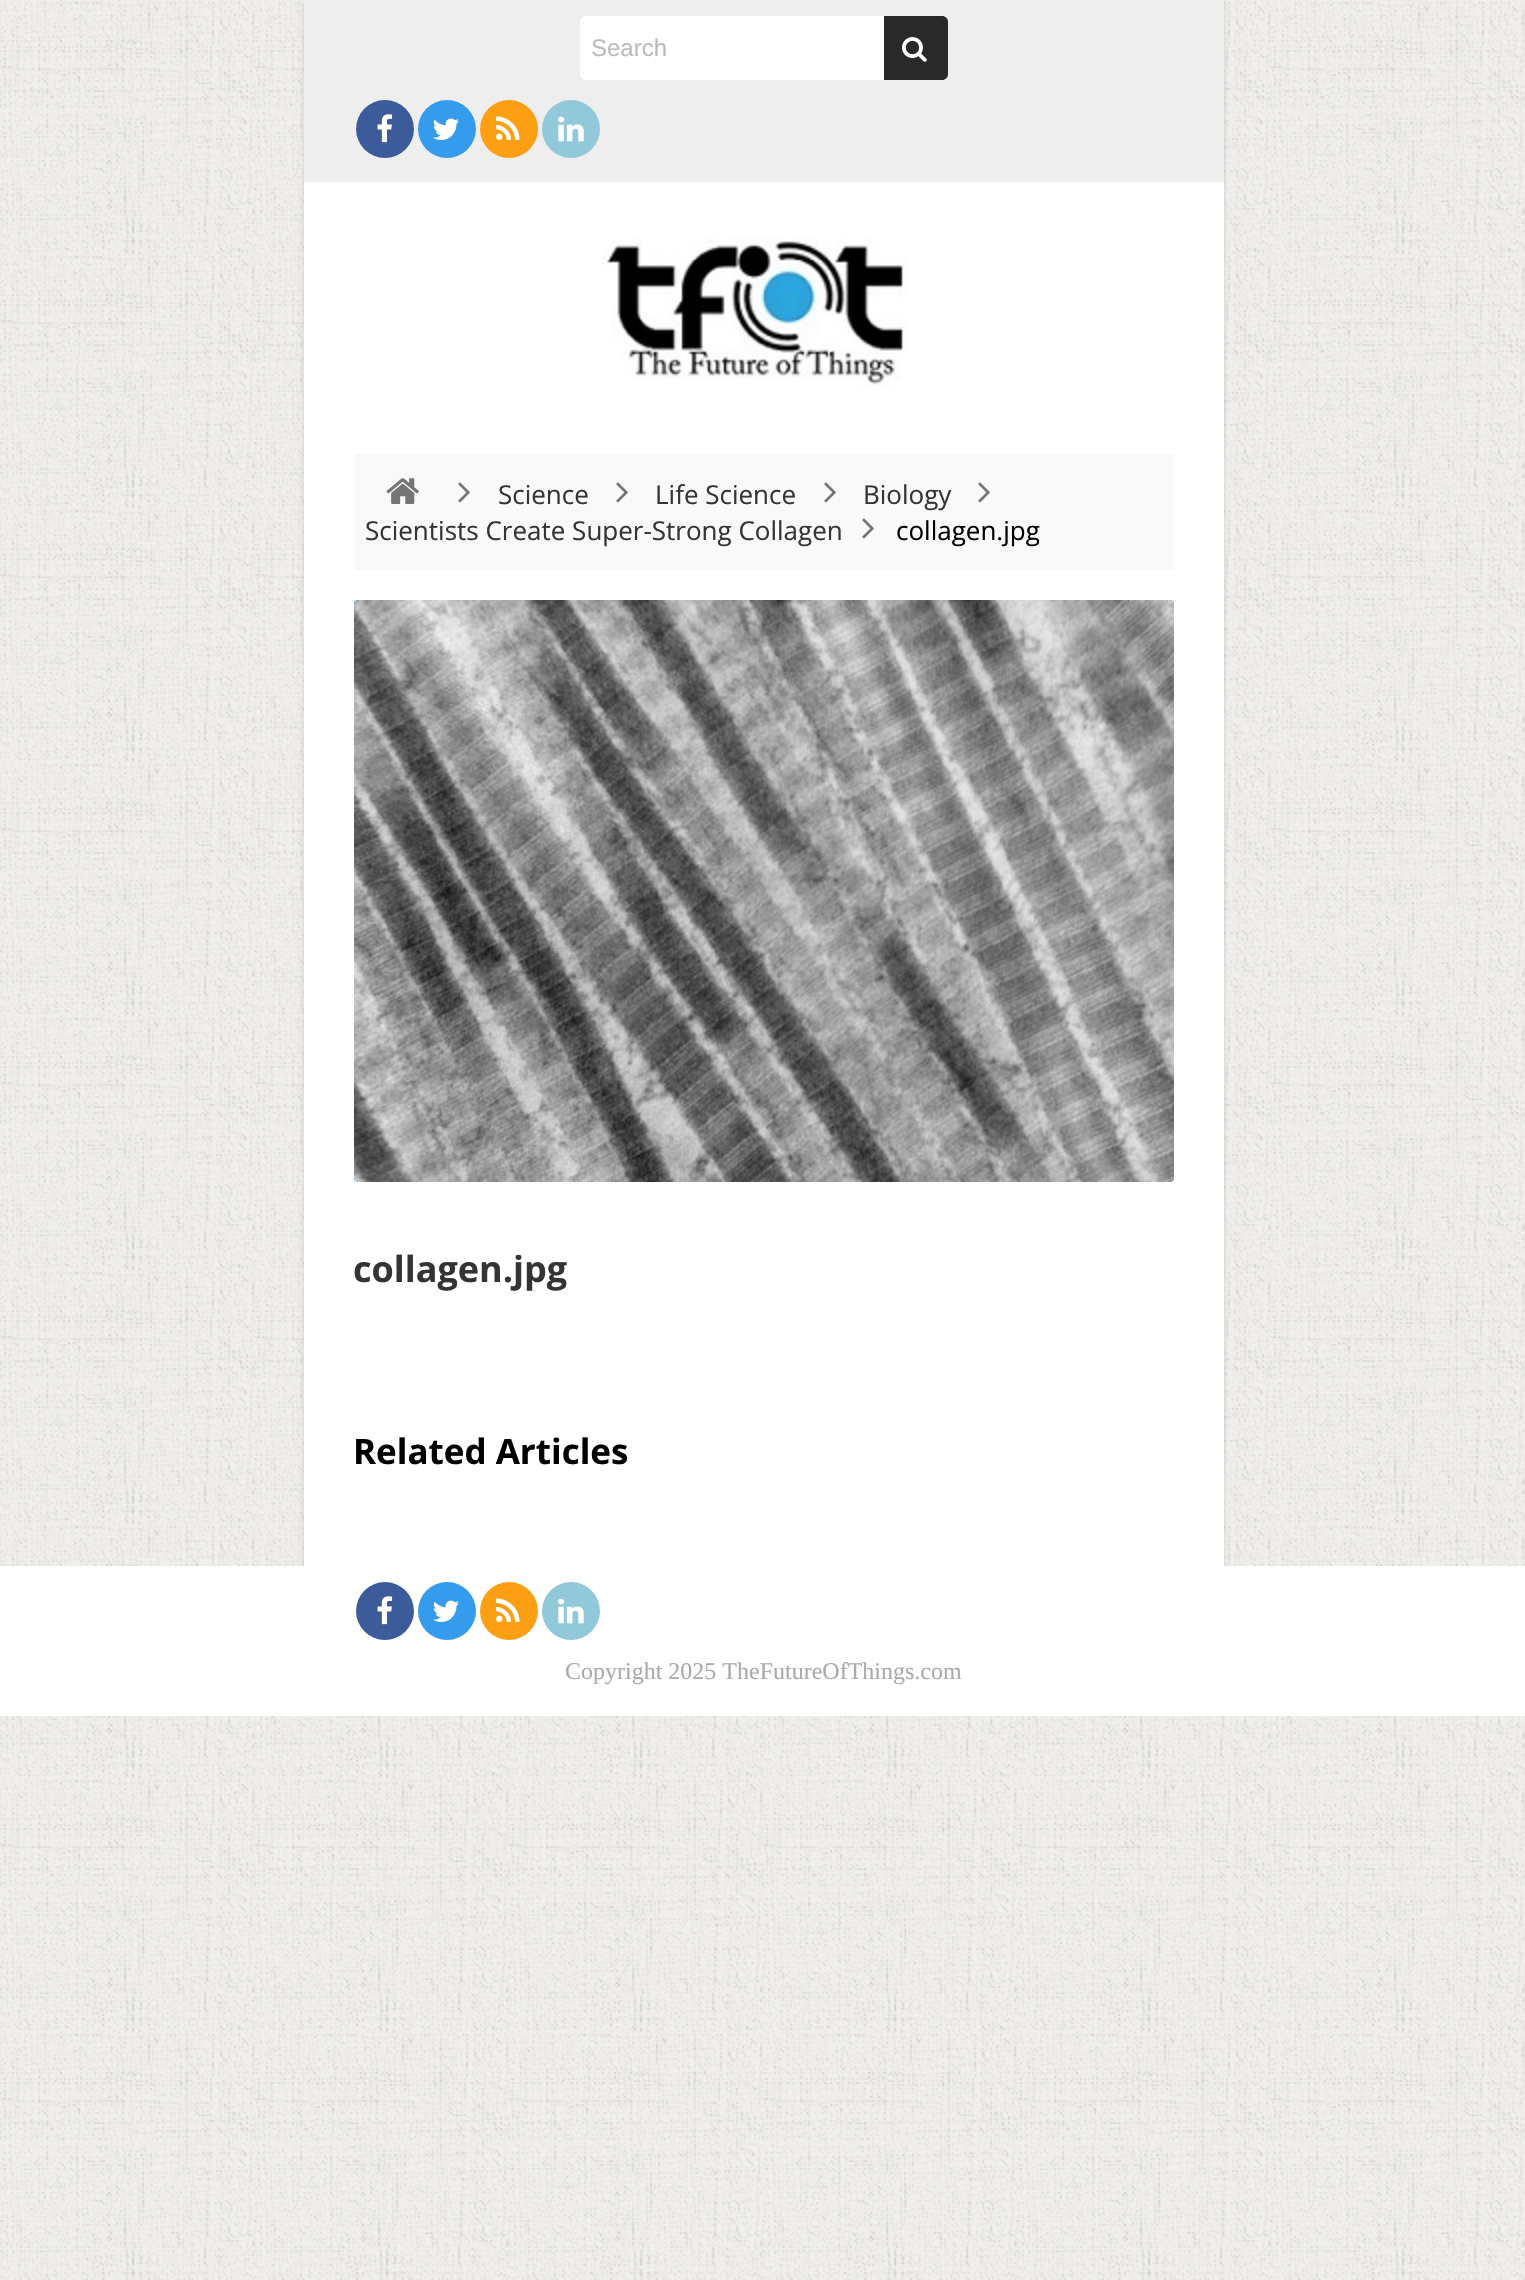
#include "include/core/SkBlurTypes.h"
#include "include/core/SkCanvas.h"
#include "include/core/SkData.h"
#include "include/core/SkFont.h"
#include "include/core/SkFontMgr.h"
#include "include/core/SkImage.h"
#include "include/core/SkMaskFilter.h"
#include "include/core/SkPaint.h"
#include "include/core/SkPathBuilder.h"
#include "include/core/SkTextBlob.h"
#include "include/effects/SkDashPathEffect.h"
#include "include/effects/SkGradientShader.h"
#include "include/utils/SkParsePath.h"

extern sk_sp<SkFontMgr> fontMgr;

void draw(SkCanvas* canvas) {
    SkPaint p;
    p.setAntiAlias(true);
    auto font = [&](const char* family, int weight, float size, bool italic = false) {
        SkFontStyle style(weight, SkFontStyle::kNormal_Width,
            italic ? SkFontStyle::kItalic_Slant : SkFontStyle::kUpright_Slant);
        SkFont result(fontMgr->matchFamilyStyle(family, style), size);
        result.setSubpixel(true);
        return result;
    };
    auto drawPhoto = [&](const char* path, float l, float t, float r, float b) {
        auto image = SkImages::DeferredFromEncodedData(SkData::MakeFromFileName(path));
        canvas->drawImageRect(image, SkRect::MakeLTRB(l, t, r, b), SkSamplingOptions());
    };
    canvas->clear(0xFFFFFFFF);
    drawPhoto("media/1.png", 0, 0, 1525, 2280);
    p.setColor(0x26000000);
    p.setMaskFilter(SkMaskFilter::MakeBlur(kNormal_SkBlurStyle, 2));
    canvas->drawRect(SkRect::MakeLTRB(304, 2, 1224, 1568), p);
    p.setMaskFilter(nullptr);
    p.setColor(0xFFFFFFFF);
    canvas->drawRect(SkRect::MakeLTRB(304, 182, 1224, 1566), p);
    p.setColor(0xFFEEEEEE);
    canvas->drawRect(SkRect::MakeLTRB(304, 0, 1224, 182), p);
    p.setColor(0xFFFFFFFF);
    canvas->drawPath(SkPathBuilder().moveTo(586, 16).lineTo(884, 16).lineTo(884, 80).lineTo(586, 80).cubicTo(582.5f, 80, 580, 77.5f, 580, 74).lineTo(580, 22).cubicTo(580, 18.5f, 582.5f, 16, 586, 16).close().detach(), p);
    auto font1 = font("Liberation Sans", 400, 24);
    p.setColor(0xFFBBBBBB);
    canvas->drawString("Search", 591, 56, font1, p);
    p.setColor(0xFF29292A);
    canvas->drawPath(SkPathBuilder().moveTo(884, 16).lineTo(942, 16).cubicTo(945.5f, 16, 948, 18.5f, 948, 22).lineTo(948, 74).cubicTo(948, 77.5f, 945.5f, 80, 942, 80).lineTo(884, 80).close().detach(), p);
    drawPhoto("media/2.png", 902, 37, 927, 62);
    p.setColor(0xFF3C5B9B);
    canvas->drawCircle(385, 129, 29, p);
    drawPhoto("media/3.png", 377, 114, 393, 143);
    p.setColor(0xFF359BED);
    canvas->drawCircle(447, 129, 29, p);
    drawPhoto("media/4.png", 433, 118, 459, 140);
    p.setColor(0xFFFD9F13);
    canvas->drawCircle(509, 129, 29, p);
    drawPhoto("media/5.png", 496, 116, 520, 140);
    p.setColor(0xFF91C9DB);
    canvas->drawCircle(571, 129, 29, p);
    drawPhoto("media/6.png", 558, 116, 584, 142);
    drawPhoto("media/7.png", 602, 238, 908, 388);
    p.setColor(0xFFF9F9F9);
    canvas->drawRoundRect(SkRect::MakeLTRB(354, 454, 1174, 570), 4, 4, p);
    drawPhoto("media/8.png", 386, 478, 419, 504);
    drawPhoto("media/9.png", 458, 482, 470, 503);
    auto font2 = font("Open Sans", 400, 26);
    p.setColor(0xFF343434);
    canvas->drawString("Science", 498, 504, font2, p);
    drawPhoto("media/9.png", 616, 482, 628, 503);
    canvas->drawString("Life Science", 655, 504, font2, p);
    drawPhoto("media/9.png", 824, 482, 836, 503);
    canvas->drawString("Biology", 863, 504, font2, p);
    drawPhoto("media/9.png", 978, 482, 990, 503);
    canvas->drawString("Scientists Create Super-Strong Collagen", 365, 540, font2, p);
    drawPhoto("media/9.png", 862, 518, 874, 539);
    p.setColor(0xFF000000);
    canvas->drawString("collagen.jpg", 896, 540, font2, p);
    p.setColor(0xFF00B4DC);
    canvas->drawRoundRect(SkRect::MakeLTRB(354, 600, 1174, 1182), 4, 4, p);
    drawPhoto("media/10.png", 354, 600, 1174, 1182);
    auto font3 = font("Open Sans", 700, 36);
    p.setColor(0xFF343434);
    canvas->drawString("collagen.jpg", 353, 1282, font3, p);
    auto font4 = font("Open Sans", 700, 35);
    p.setColor(0xFF000000);
    canvas->drawString("Related Articles", 353, 1464, font4, p);
    p.setColor(0xFFFFFFFF);
    canvas->drawRect(SkRect::MakeLTRB(0, 1566, 1525, 1716), p);
    p.setColor(0xFF3C5B9B);
    canvas->drawCircle(385, 1611, 29, p);
    drawPhoto("media/3.png", 377, 1596, 393, 1625);
    p.setColor(0xFF359BED);
    canvas->drawCircle(447, 1611, 29, p);
    drawPhoto("media/4.png", 433, 1600, 459, 1622);
    p.setColor(0xFFFD9F13);
    canvas->drawCircle(509, 1611, 29, p);
    drawPhoto("media/5.png", 496, 1598, 520, 1622);
    p.setColor(0xFF91C9DB);
    canvas->drawCircle(571, 1611, 29, p);
    drawPhoto("media/6.png", 558, 1598, 584, 1624);
    auto font5 = font("Liberation Serif", 400, 24);
    p.setColor(0xFFAAAAAA);
    canvas->drawString("Copyright 2025 TheFutureOfThings.com", 565, 1679, font5, p);
}
